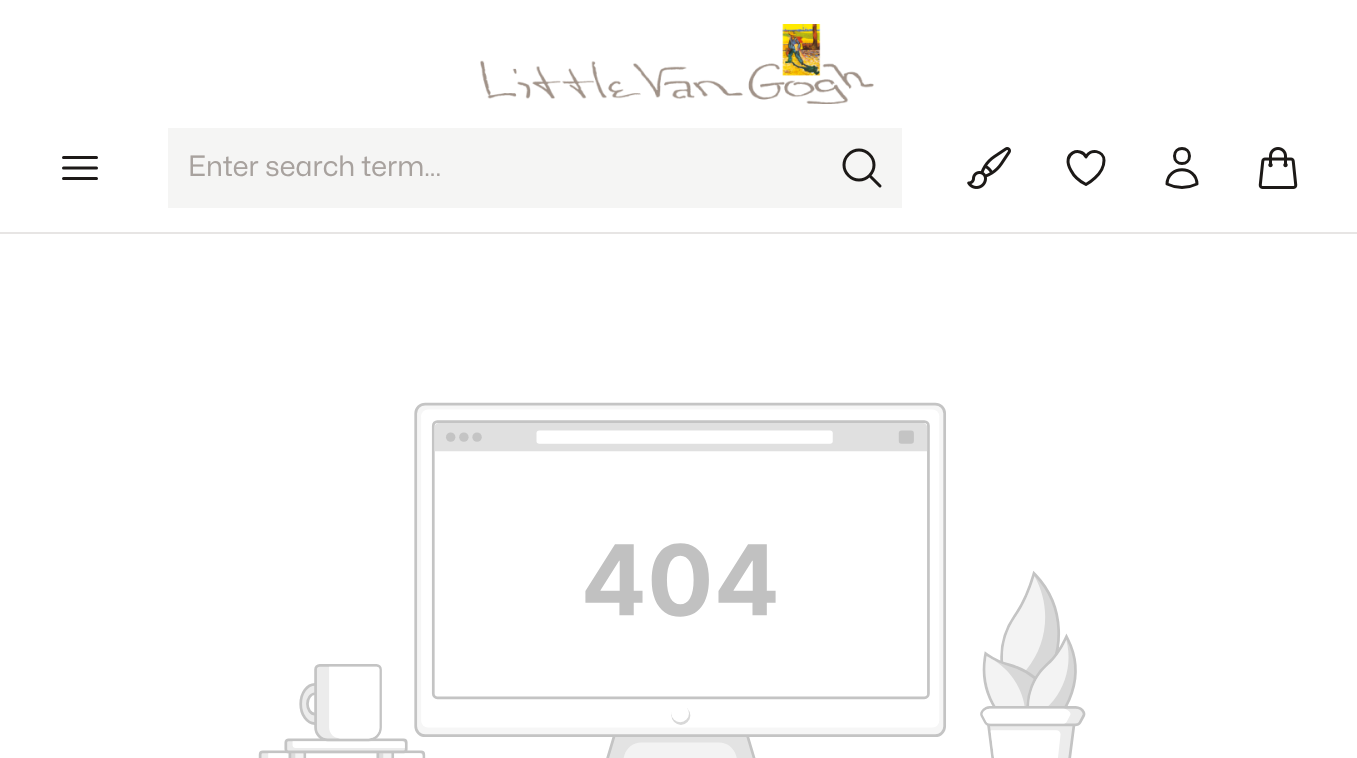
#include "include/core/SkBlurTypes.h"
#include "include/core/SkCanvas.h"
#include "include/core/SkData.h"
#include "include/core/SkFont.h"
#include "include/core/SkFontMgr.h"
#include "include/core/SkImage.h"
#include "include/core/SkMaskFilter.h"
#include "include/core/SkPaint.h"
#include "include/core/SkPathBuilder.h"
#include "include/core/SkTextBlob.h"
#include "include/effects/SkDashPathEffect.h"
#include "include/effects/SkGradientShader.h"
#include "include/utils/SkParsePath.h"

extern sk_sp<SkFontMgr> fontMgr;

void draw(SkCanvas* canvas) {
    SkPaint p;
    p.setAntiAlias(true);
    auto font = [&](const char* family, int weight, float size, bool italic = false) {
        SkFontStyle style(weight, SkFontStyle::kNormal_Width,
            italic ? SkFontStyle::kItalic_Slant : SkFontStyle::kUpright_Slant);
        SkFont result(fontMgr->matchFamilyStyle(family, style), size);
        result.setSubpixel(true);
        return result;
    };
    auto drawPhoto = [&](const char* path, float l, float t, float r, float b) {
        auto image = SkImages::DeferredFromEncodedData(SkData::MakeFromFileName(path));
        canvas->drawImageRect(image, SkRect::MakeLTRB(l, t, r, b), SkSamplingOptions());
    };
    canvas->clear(0xFFFFFFFF);
    p.setColor(0xFFE7E5E4);
    canvas->drawRect(SkRect::MakeLTRB(0, 232, 1357, 234), p);
    drawPhoto("media/1.png", 480, 24, 874, 104);
    p.setStyle(SkPaint::kStroke_Style);
    p.setStrokeWidth(3);
    p.setStrokeCap(SkPaint::kRound_Cap);
    p.setStrokeJoin(SkPaint::kRound_Join);
    p.setColor(0xFF1C1917);
    canvas->drawPath(SkPathBuilder().moveTo(63.5f, 157.5f).lineTo(96.5f, 157.5f).moveTo(63.5f, 168).lineTo(96.5f, 168).moveTo(63.5f, 178.5f).lineTo(96.5f, 178.5f).detach(), p);
    p.setStyle(SkPaint::kFill_Style);
    {
        const struct { float l, t, r, b; SkColor color; } items[] = {
            {170, 130, 822, 206, 0xFFF5F5F4},
            {168, 128, 824, 130, 0xFFF5F5F4},
            {168, 206, 824, 208, 0xFFF5F5F4},
            {168, 128, 170, 208, 0xFFF5F5F4},
        };
        for (auto [l, t, r, b, color] : items) {
            p.setColor(color);
            canvas->drawRect(SkRect::MakeLTRB(l, t, r, b), p);
        }
    }
    auto font1 = font("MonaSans", 400, 28, true);
    p.setColor(0xFFA8A29E);
    canvas->drawString("Enter search term...", 188, 176, font1, p);
    p.setColor(0xFFF5F5F4);
    canvas->drawRect(SkRect::MakeLTRB(822, 128, 902, 208), p);
    p.setStyle(SkPaint::kStroke_Style);
    p.setColor(0xFF1C1917);
    canvas->drawPath(SkPathBuilder().moveTo(880, 186).lineTo(869.5f, 175.5f).moveTo(869.5f, 175.5f).cubicTo(875.5f, 169.5f, 875.5f, 160.5f, 869.5f, 154.5f).cubicTo(863.5f, 148.5f, 854.5f, 148.5f, 848.5f, 154.5f).cubicTo(842.5f, 160.5f, 842.5f, 169.5f, 848.5f, 175.5f).cubicTo(854.5f, 181.5f, 863.5f, 181.5f, 869.5f, 175.5f).close().detach(), p);
    drawPhoto("media/2.png", 967, 147, 1011, 189);
    canvas->drawPath(SkPathBuilder().moveTo(1104, 160.5f).cubicTo(1104, 150.5f, 1090, 148, 1086, 157).cubicTo(1081, 146, 1060.5f, 152.5f, 1071, 170.5f).cubicTo(1074, 176.5f, 1080, 181.5f, 1086, 184.5f).cubicTo(1086, 184.5f, 1104, 175, 1104, 160.5f).close().detach(), p);
    canvas->drawPath(SkPathBuilder().moveTo(1189.5f, 156).cubicTo(1189.5f, 166, 1174.5f, 166, 1174.5f, 156).cubicTo(1174.5f, 146, 1189.5f, 146, 1189.5f, 156).close().moveTo(1167, 184).cubicTo(1167.5f, 165, 1196.5f, 165, 1197, 184).cubicTo(1187.5f, 188.5f, 1176.5f, 188.5f, 1167, 184).close().detach(), p);
    drawPhoto("media/3.png", 1258, 147, 1298, 189);
    drawPhoto("media/4.png", 258, 402, 1086, 758);
}
